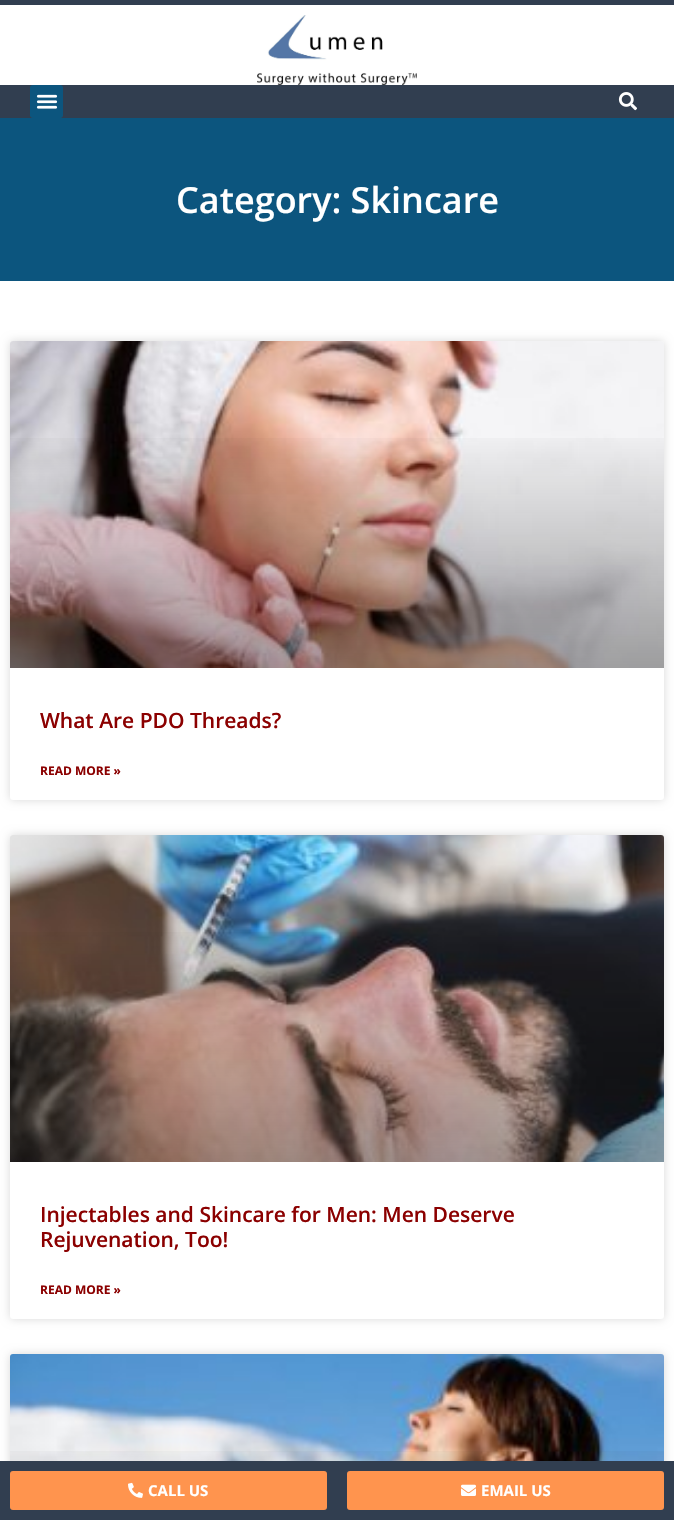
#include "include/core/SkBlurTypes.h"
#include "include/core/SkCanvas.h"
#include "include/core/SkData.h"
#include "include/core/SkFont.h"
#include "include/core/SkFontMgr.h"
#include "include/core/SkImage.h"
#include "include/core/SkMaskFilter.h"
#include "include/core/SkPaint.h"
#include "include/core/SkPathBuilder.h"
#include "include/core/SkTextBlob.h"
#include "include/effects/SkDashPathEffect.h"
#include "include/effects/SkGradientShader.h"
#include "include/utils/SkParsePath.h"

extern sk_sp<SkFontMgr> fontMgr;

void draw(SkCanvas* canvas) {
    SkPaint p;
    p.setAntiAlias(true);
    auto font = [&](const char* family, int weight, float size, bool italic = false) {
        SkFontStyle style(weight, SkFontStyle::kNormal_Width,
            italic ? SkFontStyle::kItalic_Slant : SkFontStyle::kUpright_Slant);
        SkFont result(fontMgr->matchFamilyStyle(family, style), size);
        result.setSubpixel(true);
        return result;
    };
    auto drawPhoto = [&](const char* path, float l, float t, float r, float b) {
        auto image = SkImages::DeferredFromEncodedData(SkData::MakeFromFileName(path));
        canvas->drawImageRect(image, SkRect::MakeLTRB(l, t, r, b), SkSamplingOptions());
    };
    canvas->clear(0xFFFFFFFF);
    p.setColor(0xFF313E50);
    canvas->drawRect(SkRect::MakeLTRB(0, 0, 674, 5), p);
    drawPhoto("media/1.png", 257, 15, 417, 85);
    canvas->drawRect(SkRect::MakeLTRB(0, 85, 674, 118), p);
    p.setColor(0xFF0C557E);
    canvas->drawRoundRect(SkRect::MakeLTRB(30, 85, 63, 118), 3, 3, p);
    drawPhoto("media/2.png", 36, 94, 58, 109);
    drawPhoto("media/3.png", 618, 92, 637, 111);
    canvas->drawRect(SkRect::MakeLTRB(0, 118, 674, 281), p);
    auto font1 = font("Open Sans", 600, 36);
    p.setColor(0xFFFFFFFF);
    canvas->drawString("Category: Skincare", 176, 213, font1, p);
    p.setColor(0x26000000);
    p.setMaskFilter(SkMaskFilter::MakeBlur(kNormal_SkBlurStyle, 5));
    canvas->drawRoundRect(SkRect::MakeLTRB(10, 341, 664, 800), 3, 3, p);
    p.setMaskFilter(nullptr);
    p.setColor(0xFFFFFFFF);
    canvas->drawRoundRect(SkRect::MakeLTRB(10, 341, 664, 800), 3, 3, p);
    drawPhoto("media/4.png", 10, 341, 664, 668);
    {
        const SkColor colors[] = {0x59000000, 0x00000000};
        const float stops[] = {0, 0.75f};
        const SkPoint ends[] = {{337, 668}, {337, 341}};
        p.setShader(SkGradientShader::MakeLinear(ends, colors, stops, 2, SkTileMode::kClamp));
        p.setAlpha(255);
    }
    canvas->drawRect(SkRect::MakeLTRB(10, 438, 664, 668), p);
    auto font2 = font("Open Sans", 600, 21);
    p.setShader(nullptr);
    p.setColor(0xFF8B0000);
    canvas->drawString("What Are PDO Threads?", 40, 728, font2, p);
    auto font3 = font("Open Sans", 700, 12);
    canvas->drawString("READ MORE »", 40, 775, font3, p);
    p.setColor(0x26000000);
    p.setMaskFilter(SkMaskFilter::MakeBlur(kNormal_SkBlurStyle, 5));
    canvas->drawRoundRect(SkRect::MakeLTRB(10, 835, 664, 1319), 3, 3, p);
    p.setMaskFilter(nullptr);
    p.setColor(0xFFFFFFFF);
    canvas->drawRoundRect(SkRect::MakeLTRB(10, 835, 664, 1319), 3, 3, p);
    drawPhoto("media/5.png", 10, 835, 664, 1162);
    {
        const SkColor colors[] = {0x59000000, 0x00000000};
        const float stops[] = {0, 0.75f};
        const SkPoint ends[] = {{337, 1162}, {337, 835}};
        p.setShader(SkGradientShader::MakeLinear(ends, colors, stops, 2, SkTileMode::kClamp));
        p.setAlpha(255);
    }
    canvas->drawRect(SkRect::MakeLTRB(10, 932, 664, 1162), p);
    p.setShader(nullptr);
    p.setColor(0xFF8B0000);
    canvas->drawString("Injectables and Skincare for Men: Men Deserve", 40, 1222, font2, p);
    canvas->drawString("Rejuvenation, Too!", 40, 1247, font2, p);
    canvas->drawString("READ MORE »", 40, 1294, font3, p);
    p.setColor(0x26000000);
    p.setMaskFilter(SkMaskFilter::MakeBlur(kNormal_SkBlurStyle, 5));
    canvas->drawRoundRect(SkRect::MakeLTRB(10, 1354, 664, 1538), 3, 3, p);
    p.setMaskFilter(nullptr);
    drawPhoto("media/6.png", 10, 1354, 664, 1461);
    {
        const SkColor colors[] = {0x59000000, 0x00000000};
        const float stops[] = {0, 0.75f};
        const SkPoint ends[] = {{337, 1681}, {337, 1354}};
        p.setShader(SkGradientShader::MakeLinear(ends, colors, stops, 2, SkTileMode::kClamp));
        p.setAlpha(255);
    }
    canvas->drawRect(SkRect::MakeLTRB(10, 1451, 664, 1461), p);
    p.setShader(nullptr);
    p.setColor(0xFF313E50);
    canvas->drawRect(SkRect::MakeLTRB(0, 1461, 674, 1520), p);
    p.setColor(0xFFFF944E);
    canvas->drawRoundRect(SkRect::MakeLTRB(10, 1471, 327, 1510), 3, 3, p);
    drawPhoto("media/7.png", 128, 1482, 143, 1498);
    auto font4 = font("Open Sans", 700, 15);
    p.setColor(0xFFFFFFFF);
    canvas->drawString("CALL US", 148, 1496, font4, p);
    p.setColor(0xFFFF944E);
    canvas->drawRoundRect(SkRect::MakeLTRB(347, 1471, 664, 1510), 3, 3, p);
    drawPhoto("media/8.png", 461, 1484, 476, 1496);
    p.setColor(0xFFFFFFFF);
    canvas->drawString("EMAIL US", 481, 1496, font4, p);
}
